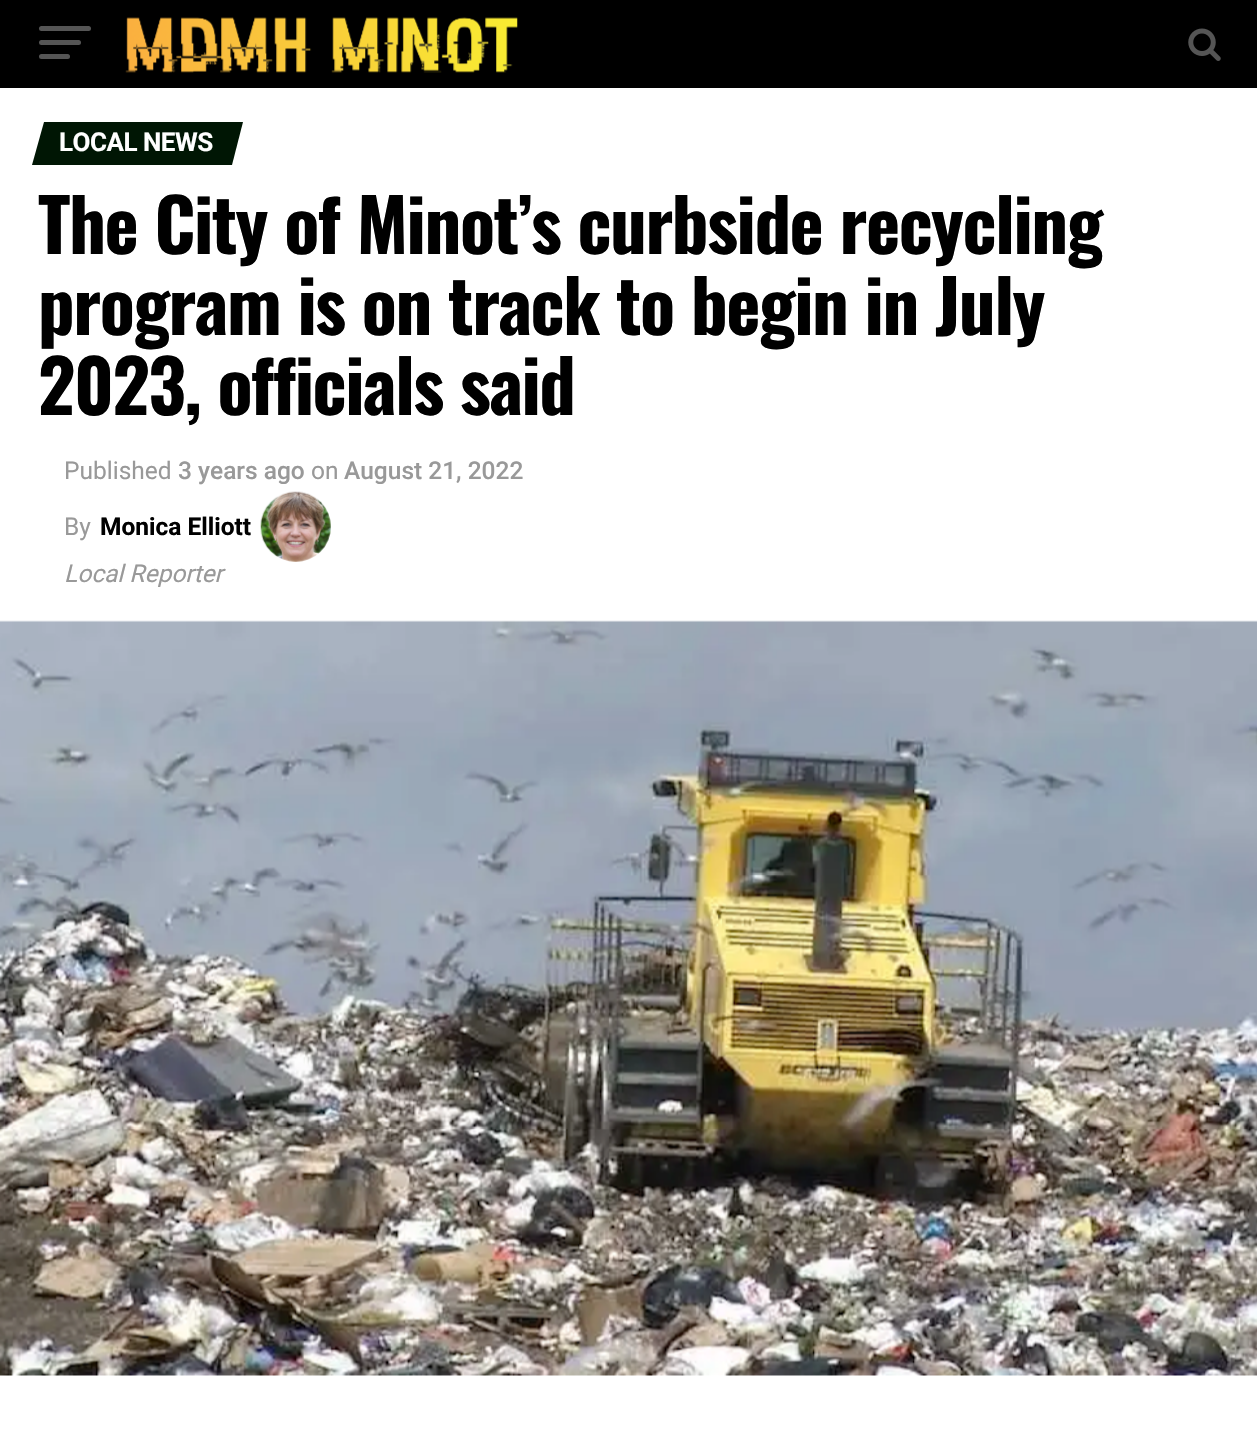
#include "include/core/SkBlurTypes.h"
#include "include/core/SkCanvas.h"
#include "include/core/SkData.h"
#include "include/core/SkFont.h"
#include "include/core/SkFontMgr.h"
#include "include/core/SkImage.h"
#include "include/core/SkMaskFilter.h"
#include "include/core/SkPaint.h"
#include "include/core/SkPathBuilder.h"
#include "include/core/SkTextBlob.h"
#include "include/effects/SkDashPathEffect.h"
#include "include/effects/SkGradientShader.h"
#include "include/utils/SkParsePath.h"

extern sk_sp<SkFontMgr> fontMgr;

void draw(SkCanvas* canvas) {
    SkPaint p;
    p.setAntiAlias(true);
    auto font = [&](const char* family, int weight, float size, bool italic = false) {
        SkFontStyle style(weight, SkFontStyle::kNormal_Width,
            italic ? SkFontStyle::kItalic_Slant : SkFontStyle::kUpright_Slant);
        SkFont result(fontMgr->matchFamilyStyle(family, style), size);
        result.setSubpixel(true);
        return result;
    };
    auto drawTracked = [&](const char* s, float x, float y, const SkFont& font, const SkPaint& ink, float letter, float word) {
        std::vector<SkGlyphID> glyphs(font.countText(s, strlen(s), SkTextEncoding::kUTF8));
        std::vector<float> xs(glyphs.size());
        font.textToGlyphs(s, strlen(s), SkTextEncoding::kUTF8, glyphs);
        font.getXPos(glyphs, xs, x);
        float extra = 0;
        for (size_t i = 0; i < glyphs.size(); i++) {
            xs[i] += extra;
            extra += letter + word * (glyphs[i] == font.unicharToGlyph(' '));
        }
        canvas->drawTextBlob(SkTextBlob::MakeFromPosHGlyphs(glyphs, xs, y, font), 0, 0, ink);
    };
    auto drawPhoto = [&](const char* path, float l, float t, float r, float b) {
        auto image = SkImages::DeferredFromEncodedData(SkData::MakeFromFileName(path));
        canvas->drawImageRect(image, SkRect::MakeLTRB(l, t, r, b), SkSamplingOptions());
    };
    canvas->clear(0xFFFFFFFF);
    p.setColor(0xFF000000);
    canvas->drawRect(SkRect::MakeLTRB(0, 0, 1257, 88), p);
    p.setColor(0xFF555555);
    canvas->drawRoundRect(SkRect::MakeLTRB(39, 26, 91, 31), 2.5f, 2.5f, p);
    canvas->drawRoundRect(SkRect::MakeLTRB(39, 40, 81, 45), 2.5f, 2.5f, p);
    canvas->drawRoundRect(SkRect::MakeLTRB(39, 54, 70, 59), 2.5f, 2.5f, p);
    drawPhoto("media/1.png", 125, 17, 518, 73);
    drawPhoto("media/2.png", 1188, 28, 1221, 61);
    p.setColor(0xFF001604);
    canvas->drawPath(SkPathBuilder().moveTo(44, 122).lineTo(243, 122).lineTo(232, 165).lineTo(32, 165).close().detach(), p);
    auto font1 = font("Roboto", 700, 26);
    p.setColor(0xFFFFFFFF);
    drawTracked("LOCAL NEWS", 59, 151, font1, p, -0.5f, 0);
    auto font2 = font("Oswald", 700, 72.75f);
    p.setColor(0xFF000000);
    {
        const struct { const char* s; float x, y; } items[] = {
            {"The City of Minot’s curbside recycling", 38, 254},
            {"program is on track to begin in July", 38, 335},
            {"2023, officials said", 38, 415},
        };
        for (auto [s, x, y] : items) {
            drawTracked(s, x, y, font2, p, -1.45f, 0);
        }
    }
    auto font3 = font("Roboto", 400, 24.5f);
    p.setColor(0xFF999999);
    canvas->drawString("Published", 64, 479, font3, p);
    auto font4 = font("Roboto", 500, 24.5f);
    canvas->drawString("3 years ago", 178, 479, font4, p);
    canvas->drawString("on", 311, 479, font3, p);
    canvas->drawString("August 21, 2022", 344, 479, font4, p);
    canvas->drawString("By", 64, 535, font3, p);
    auto font5 = font("Roboto", 700, 24.5f);
    p.setColor(0xFF000000);
    canvas->drawString("Monica Elliott", 100, 535, font5, p);
    drawPhoto("media/3.png", 260, 491, 331, 562);
    auto font6 = font("Roboto", 400, 24.5f, true);
    p.setColor(0xFF999999);
    canvas->drawString("Local Reporter", 64, 582, font6, p);
    drawPhoto("media/4.png", 0, 620, 1257, 1376);
}
